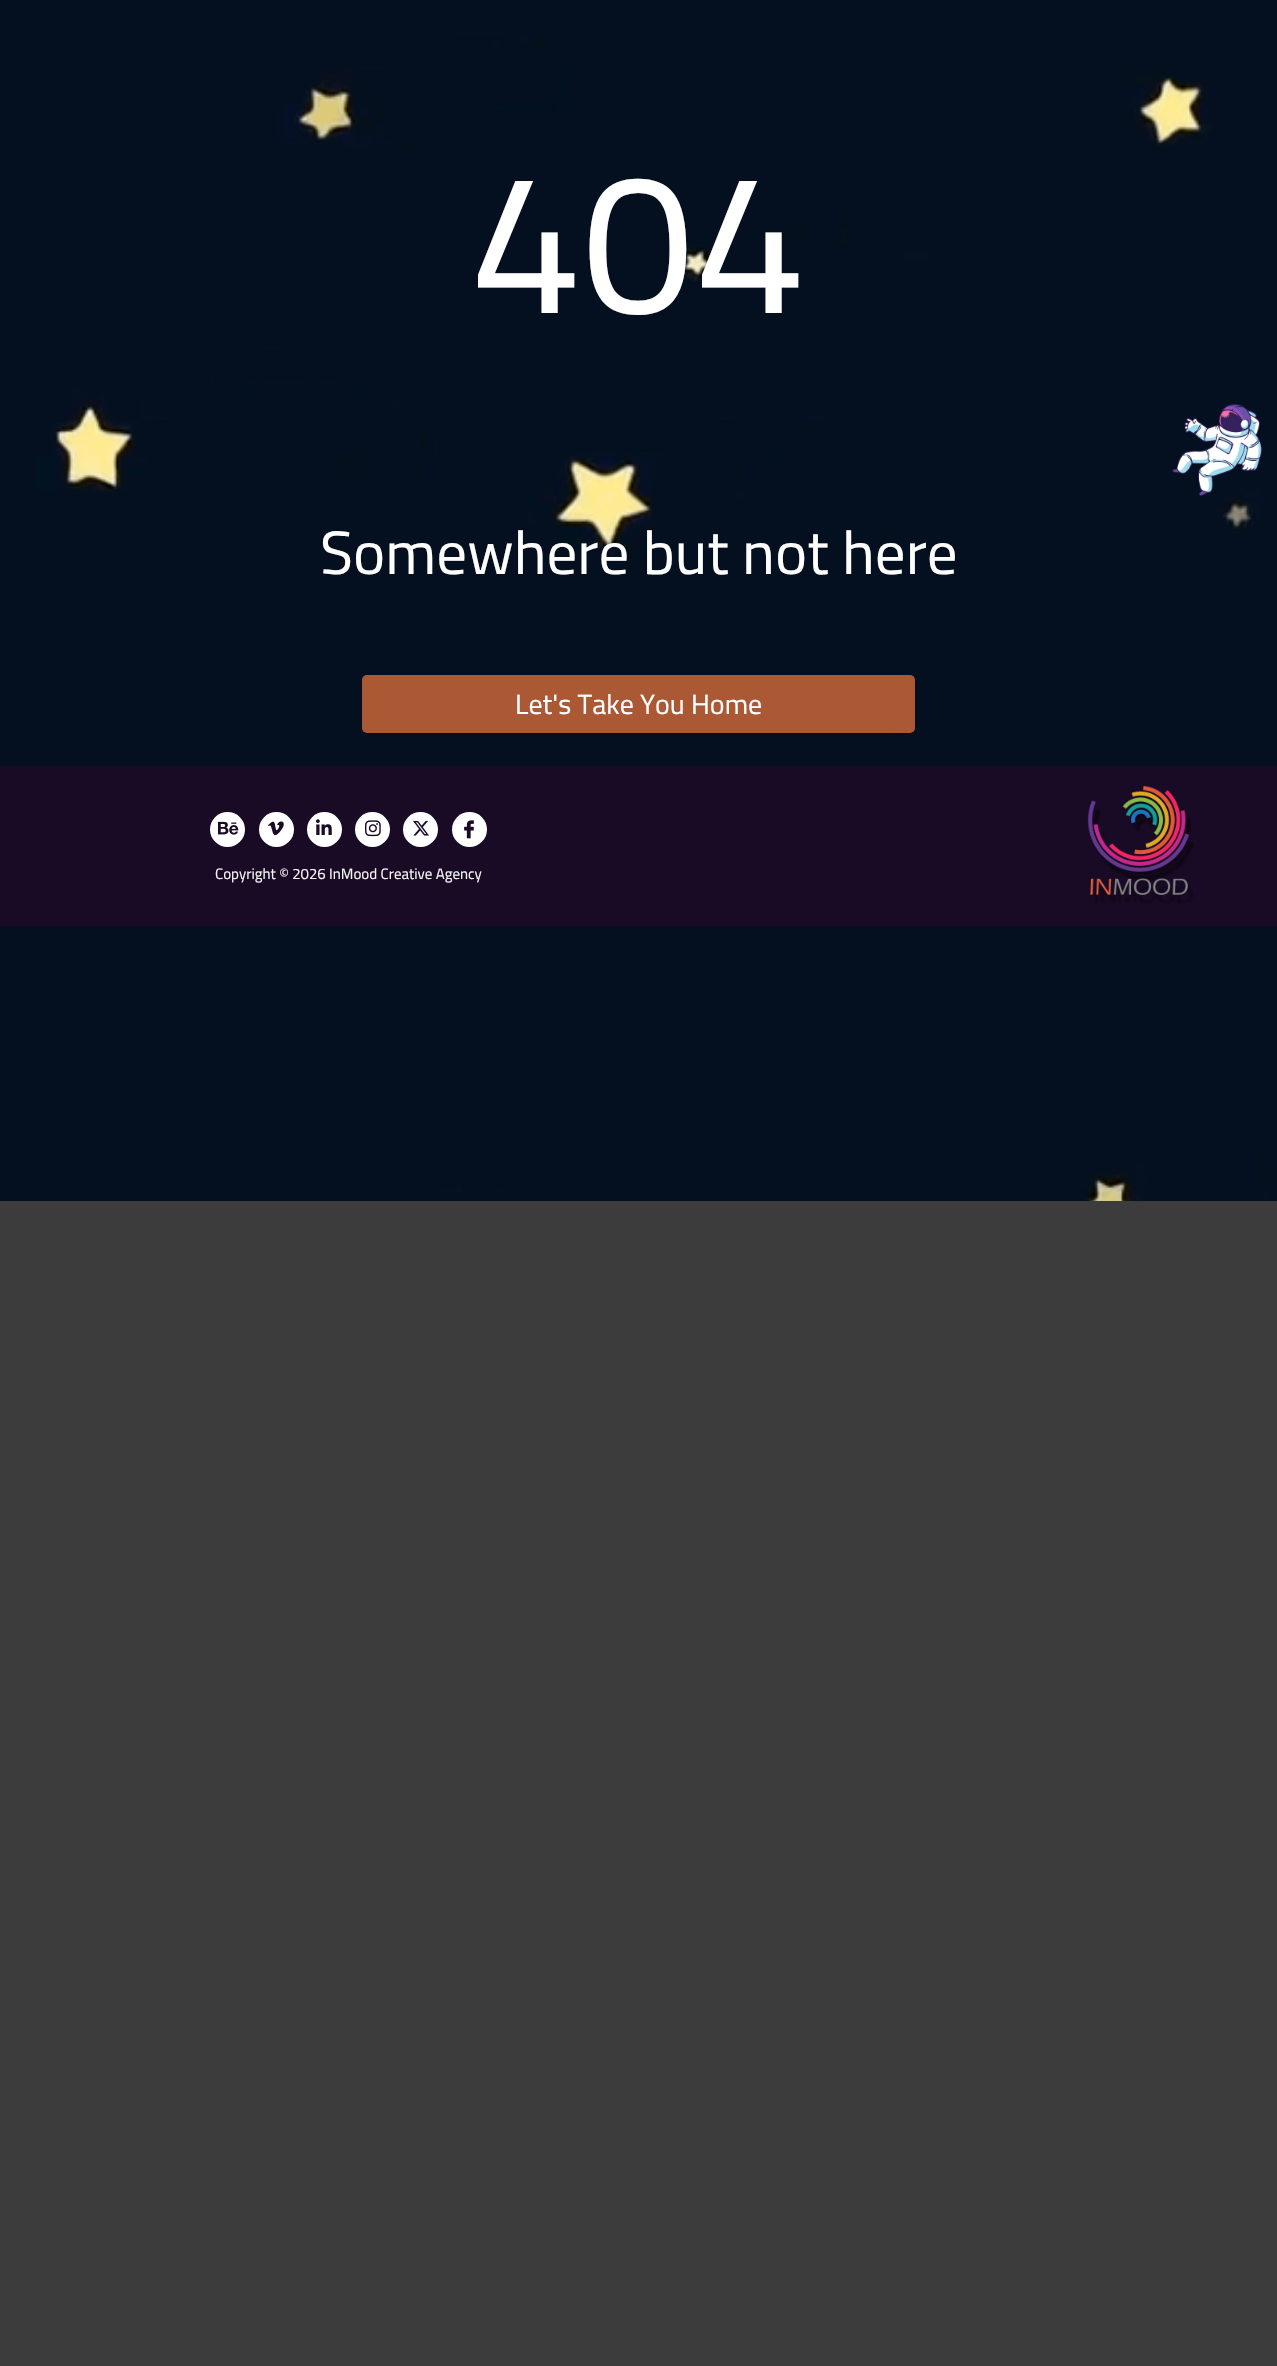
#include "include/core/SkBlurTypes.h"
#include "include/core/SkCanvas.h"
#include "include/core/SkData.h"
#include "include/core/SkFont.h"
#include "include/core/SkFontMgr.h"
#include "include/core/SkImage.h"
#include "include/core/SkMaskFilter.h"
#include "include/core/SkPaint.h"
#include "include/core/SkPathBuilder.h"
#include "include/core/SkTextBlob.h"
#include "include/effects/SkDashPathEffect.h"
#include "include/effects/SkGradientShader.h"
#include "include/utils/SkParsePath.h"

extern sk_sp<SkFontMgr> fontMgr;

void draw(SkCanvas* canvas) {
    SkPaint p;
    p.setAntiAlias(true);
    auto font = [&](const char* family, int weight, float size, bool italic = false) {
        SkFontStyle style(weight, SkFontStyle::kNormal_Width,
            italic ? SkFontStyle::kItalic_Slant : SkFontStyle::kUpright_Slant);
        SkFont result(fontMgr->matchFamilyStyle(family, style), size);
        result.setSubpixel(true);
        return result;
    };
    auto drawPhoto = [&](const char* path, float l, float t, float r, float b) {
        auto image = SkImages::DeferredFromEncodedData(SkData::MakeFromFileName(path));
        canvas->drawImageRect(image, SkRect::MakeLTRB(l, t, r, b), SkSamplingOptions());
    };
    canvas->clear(0xFF3C3C3C);
    drawPhoto("media/1.png", 0, 0, 1277, 1201);
    auto font1 = font("Cairo", 400, 200);
    p.setColor(0xFFFFFFFF);
    canvas->drawString("404", 470, 313, font1, p);
    drawPhoto("media/2.png", 1172, 404, 1262, 496);
    auto font2 = font("Cairo", 400, 61);
    canvas->drawString("Somewhere but not here", 320, 574, font2, p);
    p.setColor(0xFFAB5934);
    canvas->drawRoundRect(SkRect::MakeLTRB(362, 675, 915, 733), 5, 5, p);
    auto font3 = font("Cairo", 400, 28);
    p.setColor(0xFFFFFFFF);
    canvas->drawString("Let's Take You Home", 515, 714, font3, p);
    p.setColor(0xFF190A26);
    canvas->drawRect(SkRect::MakeLTRB(0, 766, 1277, 926), p);
    p.setColor(0xFFFFFFFF);
    canvas->drawCircle(227.5f, 829.5f, 17.5f, p);
    drawPhoto("media/3.png", 218, 821, 239, 835);
    canvas->drawCircle(276.5f, 829.5f, 17.5f, p);
    drawPhoto("media/4.png", 268, 821, 284, 836);
    canvas->drawCircle(324.5f, 829.5f, 17.5f, p);
    drawPhoto("media/5.png", 316, 819, 332, 835);
    canvas->drawCircle(372.5f, 829.5f, 17.5f, p);
    drawPhoto("media/6.png", 365, 820, 381, 837);
    canvas->drawCircle(420.5f, 829.5f, 17.5f, p);
    drawPhoto("media/7.png", 413, 820, 429, 836);
    canvas->drawCircle(469.5f, 829.5f, 17.5f, p);
    drawPhoto("media/8.png", 464, 820, 474, 839);
    auto font4 = font("Cairo", 400, 15);
    p.setColor(0xFFF5F5F5);
    canvas->drawString("Copyright © 2026 InMood Creative Agency", 215, 879, font4, p);
    drawPhoto("media/9.png", 1087, 786, 1194, 904);
}
